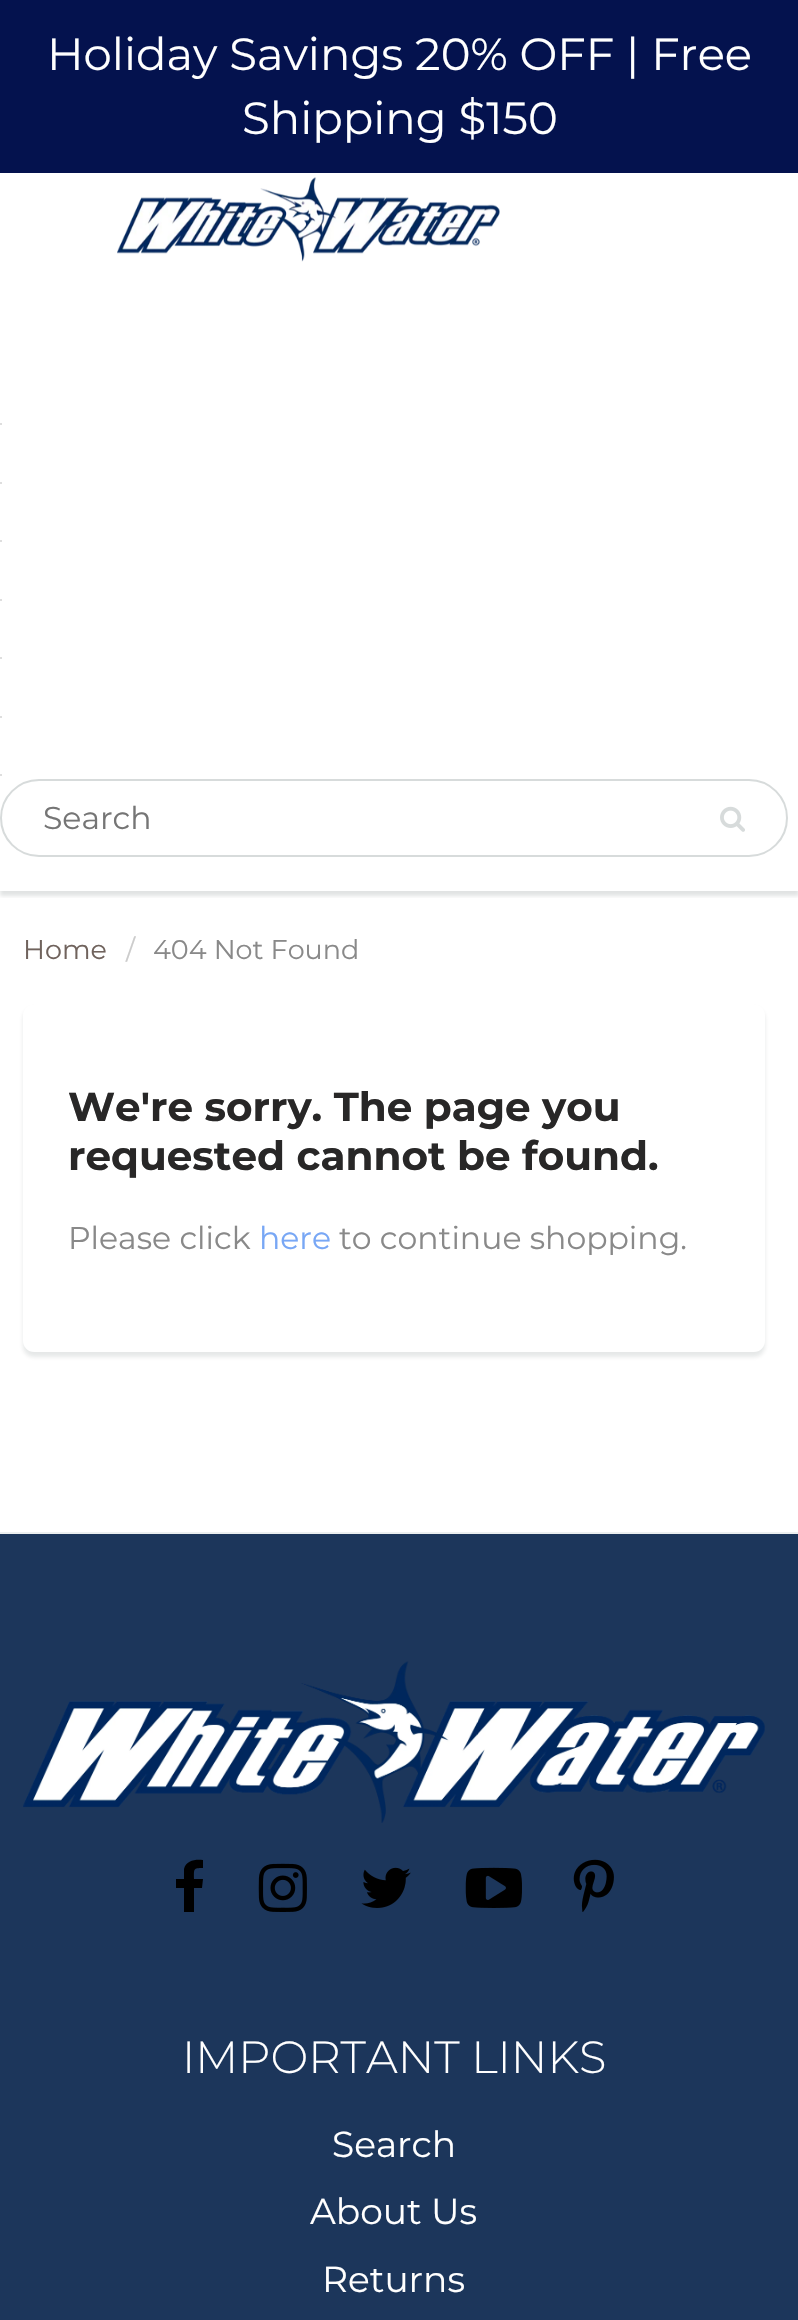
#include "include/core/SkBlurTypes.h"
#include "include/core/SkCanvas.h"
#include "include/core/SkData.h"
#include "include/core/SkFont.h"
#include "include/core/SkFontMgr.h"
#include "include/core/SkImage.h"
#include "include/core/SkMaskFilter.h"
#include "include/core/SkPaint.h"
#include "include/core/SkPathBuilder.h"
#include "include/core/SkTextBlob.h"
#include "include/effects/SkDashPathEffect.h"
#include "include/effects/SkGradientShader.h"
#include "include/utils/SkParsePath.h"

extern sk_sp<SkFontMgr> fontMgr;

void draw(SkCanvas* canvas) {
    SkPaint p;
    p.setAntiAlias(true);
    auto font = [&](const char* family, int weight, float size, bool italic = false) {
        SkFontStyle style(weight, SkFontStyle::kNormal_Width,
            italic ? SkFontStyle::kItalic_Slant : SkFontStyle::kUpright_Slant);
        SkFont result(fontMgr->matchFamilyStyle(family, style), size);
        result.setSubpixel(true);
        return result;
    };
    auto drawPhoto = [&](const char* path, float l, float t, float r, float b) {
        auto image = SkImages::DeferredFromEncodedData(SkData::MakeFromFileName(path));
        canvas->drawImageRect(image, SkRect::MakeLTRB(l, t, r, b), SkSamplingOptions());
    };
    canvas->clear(0xFFFFFFFF);
    p.setColor(0xFF04124E);
    canvas->drawRect(SkRect::MakeLTRB(0, 0, 798, 173), p);
    auto font1 = font("Montserrat", 400, 45);
    p.setColor(0xFFFFFFFF);
    canvas->drawString("Holiday Savings 20% OFF | Free", 47, 70, font1, p);
    canvas->drawString("Shipping $150", 242, 134, font1, p);
    canvas->save();
    canvas->clipRect(SkRect::MakeLTRB(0, 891, 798, 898));
    p.setColor(0x1F0B191C);
    p.setMaskFilter(SkMaskFilter::MakeBlur(kNormal_SkBlurStyle, 2));
    canvas->drawRect(SkRect::MakeLTRB(0, 178, 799, 896), p);
    p.setMaskFilter(nullptr);
    canvas->restore();
    drawPhoto("media/1.png", 117, 177, 500, 262);
    {
        const struct { float l, t, r, b; SkColor color; } items[] = {
            {0, 423, 2, 425, 0xFFDEDEDE},
            {0, 482, 2, 484, 0xFFDEDEDE},
            {0, 540, 2, 542, 0xFFDEDEDE},
            {0, 599, 2, 601, 0xFFDEDEDE},
            {0, 657, 2, 659, 0xFFDEDEDE},
            {0, 716, 2, 718, 0xFFDEDEDE},
            {0, 774, 2, 776, 0xFFDEDEDE},
        };
        for (auto [l, t, r, b, color] : items) {
            p.setColor(color);
            canvas->drawRect(SkRect::MakeLTRB(l, t, r, b), p);
        }
    }
    p.setStyle(SkPaint::kStroke_Style);
    p.setStrokeWidth(2);
    p.setColor(0xFFD7DBDB);
    canvas->drawRoundRect(SkRect::MakeLTRB(1, 780, 787, 856), 38, 38, p);
    auto font2 = font("Montserrat", 400, 31.5f);
    p.setStyle(SkPaint::kFill_Style);
    p.setColor(0xFF757575);
    canvas->drawString("Search", 43, 829, font2, p);
    drawPhoto("media/2.png", 720, 806, 745, 832);
    auto font3 = font("Montserrat", 400, 27);
    p.setColor(0xFF70635D);
    canvas->drawString("Home", 23, 959, font3, p);
    p.setColor(0xFFCCCCCC);
    canvas->drawString("/", 126, 959, font3, p);
    p.setColor(0xFF898989);
    canvas->drawString("404 Not Found", 153, 959, font3, p);
    p.setColor(0x1A0B191C);
    p.setMaskFilter(SkMaskFilter::MakeBlur(kNormal_SkBlurStyle, 2));
    canvas->drawRoundRect(SkRect::MakeLTRB(23, 1008, 765, 1357), 11, 11, p);
    p.setMaskFilter(nullptr);
    p.setColor(0xFFFFFFFF);
    canvas->drawRoundRect(SkRect::MakeLTRB(23, 1004, 765, 1352), 11, 11, p);
    auto font4 = font("Montserrat", 700, 40.5f);
    p.setColor(0xFF282727);
    canvas->drawString("We're sorry. The page you", 68, 1121, font4, p);
    canvas->drawString("requested cannot be found.", 68, 1170, font4, p);
    p.setColor(0xFF898989);
    canvas->drawString("Please click", 68, 1249, font2, p);
    p.setColor(0xFF78A7F5);
    canvas->drawString("here", 259, 1249, font2, p);
    p.setColor(0xFF898989);
    canvas->drawString("to continue shopping.", 339, 1249, font2, p);
    p.setColor(0xFF1C365B);
    canvas->drawRect(SkRect::MakeLTRB(0, 1534, 798, 2320), p);
    p.setColor(0xFFECEFEF);
    canvas->drawRect(SkRect::MakeLTRB(0, 1532, 798, 1534), p);
    drawPhoto("media/3.png", 23, 1661, 765, 1823);
    p.setColor(0xFF000000);
    canvas->drawPath(SkPathBuilder().moveTo(203, 1860).lineTo(203, 1868).cubicTo(193, 1868, 194, 1869, 194, 1879).lineTo(203, 1879).lineTo(202, 1888).lineTo(194, 1888).lineTo(194, 1912).lineTo(184, 1912).lineTo(184, 1888).lineTo(176, 1888).lineTo(176, 1879).lineTo(184, 1879).lineTo(184, 1869).cubicTo(186, 1860, 196, 1859, 203, 1860).close().detach(), p);
    drawPhoto("media/4.png", 258, 1863, 307, 1912);
    drawPhoto("media/5.png", 361, 1867, 411, 1908);
    drawPhoto("media/6.png", 465, 1867, 522, 1908);
    drawPhoto("media/7.png", 573, 1859, 614, 1912);
    auto font5 = font("Montserrat", 300, 45);
    p.setColor(0xFFFFFFFF);
    canvas->drawString("IMPORTANT LINKS", 182, 2073, font5, p);
    auto font6 = font("Montserrat", 400, 36);
    {
        const struct { const char* s; float x, y; } items[] = {
            {"Search", 332, 2157},
            {"About Us", 310, 2224},
            {"Returns", 322, 2292},
        };
        for (auto [s, x, y] : items) {
            canvas->drawString(s, x, y, font6, p);
        }
    }
}
